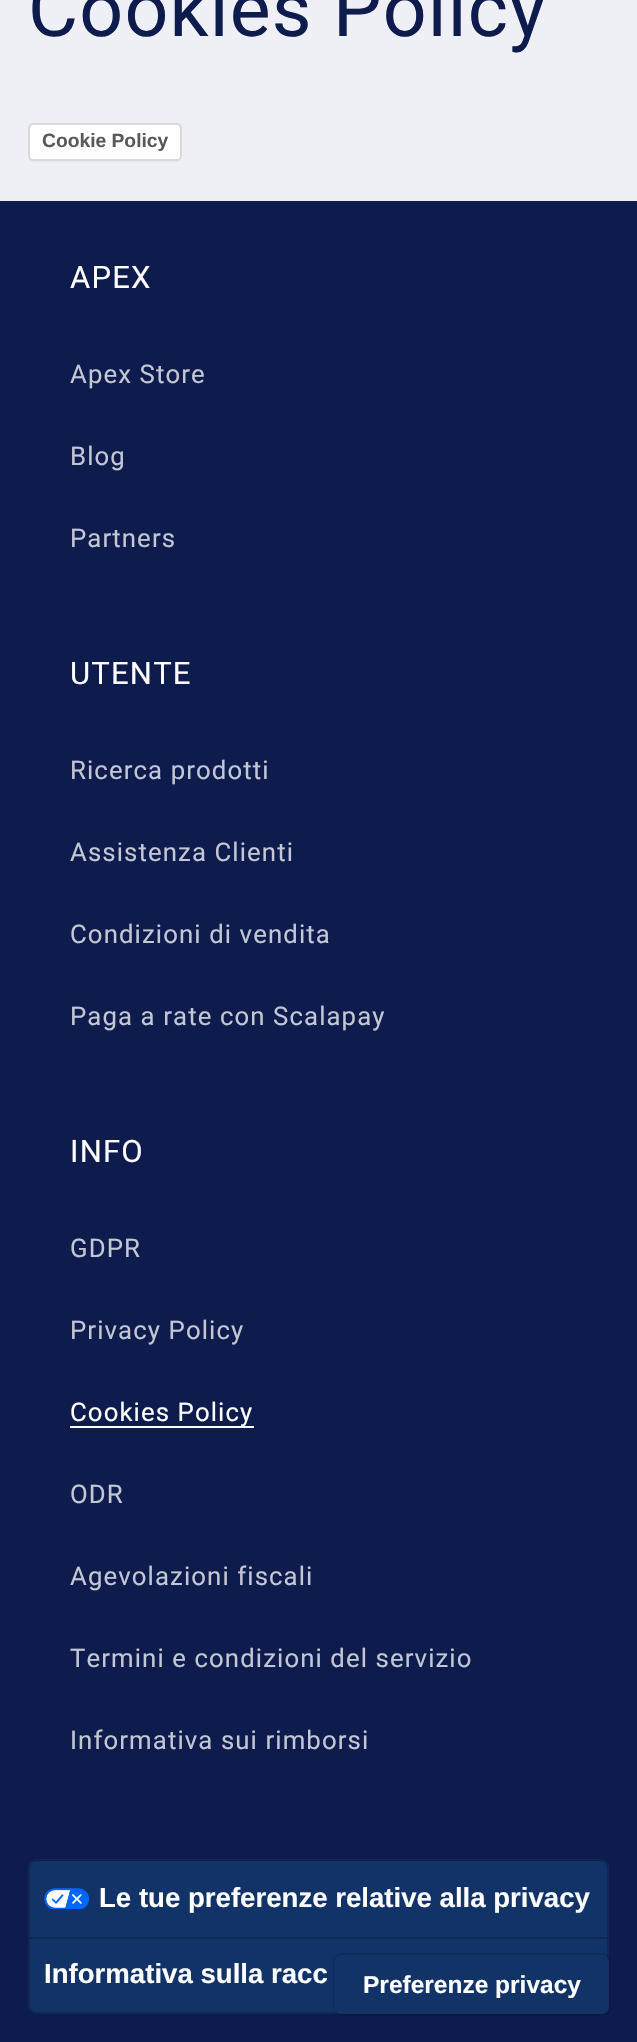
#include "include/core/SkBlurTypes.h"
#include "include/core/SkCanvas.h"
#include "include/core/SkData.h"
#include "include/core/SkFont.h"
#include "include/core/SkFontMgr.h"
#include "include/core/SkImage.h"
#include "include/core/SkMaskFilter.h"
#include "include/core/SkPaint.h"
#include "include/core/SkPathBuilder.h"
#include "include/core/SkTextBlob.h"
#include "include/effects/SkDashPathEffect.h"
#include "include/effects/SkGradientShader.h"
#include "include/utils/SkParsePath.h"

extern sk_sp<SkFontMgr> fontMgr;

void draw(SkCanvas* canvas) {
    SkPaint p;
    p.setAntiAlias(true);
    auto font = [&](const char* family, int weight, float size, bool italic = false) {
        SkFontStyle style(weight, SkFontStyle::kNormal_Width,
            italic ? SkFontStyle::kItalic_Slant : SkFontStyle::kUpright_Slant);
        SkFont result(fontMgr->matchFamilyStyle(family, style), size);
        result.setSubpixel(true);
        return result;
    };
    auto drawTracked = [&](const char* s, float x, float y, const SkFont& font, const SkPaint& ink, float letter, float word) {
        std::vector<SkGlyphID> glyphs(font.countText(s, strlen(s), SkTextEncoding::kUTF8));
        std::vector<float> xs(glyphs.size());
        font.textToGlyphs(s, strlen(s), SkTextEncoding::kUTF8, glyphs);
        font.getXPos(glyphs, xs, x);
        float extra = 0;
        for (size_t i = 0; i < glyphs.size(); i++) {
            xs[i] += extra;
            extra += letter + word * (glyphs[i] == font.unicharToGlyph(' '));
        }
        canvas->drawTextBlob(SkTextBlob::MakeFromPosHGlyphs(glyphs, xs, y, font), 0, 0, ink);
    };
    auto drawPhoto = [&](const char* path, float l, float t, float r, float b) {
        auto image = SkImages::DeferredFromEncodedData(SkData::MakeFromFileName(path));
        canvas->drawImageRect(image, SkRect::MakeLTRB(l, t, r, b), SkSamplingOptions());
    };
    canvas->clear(0xFFEFF0F5);
    auto font1 = font("Roboto", 400, 77);
    p.setColor(0xFF0E1B4D);
    drawTracked("Cookies Policy", 28, 36, font1, p, 1.2f, 0);
    p.setColor(0x26000000);
    p.setMaskFilter(SkMaskFilter::MakeBlur(kNormal_SkBlurStyle, 1));
    canvas->drawRoundRect(SkRect::MakeLTRB(30, 126, 180, 161), 4, 4, p);
    p.setMaskFilter(nullptr);
    p.setColor(0xFFFFFFFF);
    canvas->drawRoundRect(SkRect::MakeLTRB(28, 123, 182, 161), 5, 5, p);
    p.setStyle(SkPaint::kStroke_Style);
    p.setStrokeWidth(2);
    p.setColor(0x26000000);
    canvas->drawRoundRect(SkRect::MakeLTRB(29, 124, 181, 160), 4, 4, p);
    auto font2 = font("Liberation Sans", 700, 19.25f);
    p.setStyle(SkPaint::kFill_Style);
    p.setColor(0xFF595959);
    canvas->drawString("Cookie Policy", 42, 147, font2, p);
    p.setColor(0xFF0E1B4D);
    canvas->drawRect(SkRect::MakeLTRB(0, 201, 637, 2042), p);
    auto font3 = font("Roboto", 400, 31);
    p.setColor(0xFFFFFFFF);
    drawTracked("APEX", 70, 288, font3, p, 1.2f, 0);
    auto font4 = font("Roboto", 400, 25.75f);
    p.setColor(0xFFC3C6D3);
    {
        const struct { const char* s; float x, y; } items[] = {
            {"Apex Store", 70, 383},
            {"Blog", 70, 465},
            {"Partners", 70, 547},
        };
        for (auto [s, x, y] : items) {
            drawTracked(s, x, y, font4, p, 1.1f, 0);
        }
    }
    p.setColor(0xFFFFFFFF);
    drawTracked("UTENTE", 70, 684, font3, p, 1.2f, 0);
    p.setColor(0xFFC3C6D3);
    {
        const struct { const char* s; float x, y; } items[] = {
            {"Ricerca prodotti", 70, 779},
            {"Assistenza Clienti", 70, 861},
            {"Condizioni di vendita", 70, 943},
            {"Paga a rate con Scalapay", 70, 1025},
        };
        for (auto [s, x, y] : items) {
            drawTracked(s, x, y, font4, p, 1.1f, 0);
        }
    }
    p.setColor(0xFFFFFFFF);
    drawTracked("INFO", 70, 1162, font3, p, 1.2f, 0);
    p.setColor(0xFFC3C6D3);
    drawTracked("GDPR", 70, 1257, font4, p, 1.1f, 0);
    drawTracked("Privacy Policy", 70, 1339, font4, p, 1.1f, 0);
    p.setColor(0xFFFFFFFF);
    canvas->drawRect(SkRect::MakeLTRB(70, 1426, 254, 1428), p);
    drawTracked("Cookies Policy", 70, 1421, font4, p, 1.1f, 0);
    p.setColor(0xFFC3C6D3);
    {
        const struct { const char* s; float x, y; } items[] = {
            {"ODR", 70, 1503},
            {"Agevolazioni fiscali", 70, 1585},
            {"Termini e condizioni del servizio", 70, 1667},
            {"Informativa sui rimborsi", 70, 1749},
        };
        for (auto [s, x, y] : items) {
            drawTracked(s, x, y, font4, p, 1.1f, 0);
        }
    }
    p.setColor(0xFF113368);
    canvas->drawRoundRect(SkRect::MakeLTRB(28, 1859, 609, 2014), 9, 9, p);
    p.setStyle(SkPaint::kStroke_Style);
    p.setColor(0x33000000);
    canvas->drawRoundRect(SkRect::MakeLTRB(29, 1860, 608, 2013), 8, 8, p);
    p.setStyle(SkPaint::kFill_Style);
    canvas->drawPath(SkPathBuilder(SkPathFillType::kEvenOdd).moveTo(607, 1939).lineTo(30, 1939).lineTo(30, 1937).lineTo(607, 1937).close().moveTo(37, 1860).lineTo(33, 1861).lineTo(604, 1861).lineTo(600, 1860).close().detach(), p);
    drawPhoto("media/1.png", 44, 1888, 89, 1909);
    auto font5 = font("Liberation Sans", 700, 27.6f);
    p.setColor(0xFFFFFFFF);
    canvas->drawString("Le tue preferenze relative alla privacy", 99, 1907, font5, p);
    canvas->drawString("Informativa sulla racc", 44, 1983, font5, p);
    p.setStyle(SkPaint::kStroke_Style);
    p.setColor(0x26000000);
    canvas->drawRoundRect(SkRect::MakeLTRB(334, 1954, 610, 2015), 8, 8, p);
    p.setStyle(SkPaint::kFill_Style);
    p.setColor(0xFF113368);
    canvas->drawRoundRect(SkRect::MakeLTRB(334, 1955, 609, 2014), 7, 7, p);
    auto font6 = font("Liberation Sans", 700, 24.5f);
    p.setColor(0xFFFFFFFF);
    canvas->drawString("Preferenze privacy", 363, 1993, font6, p);
}
